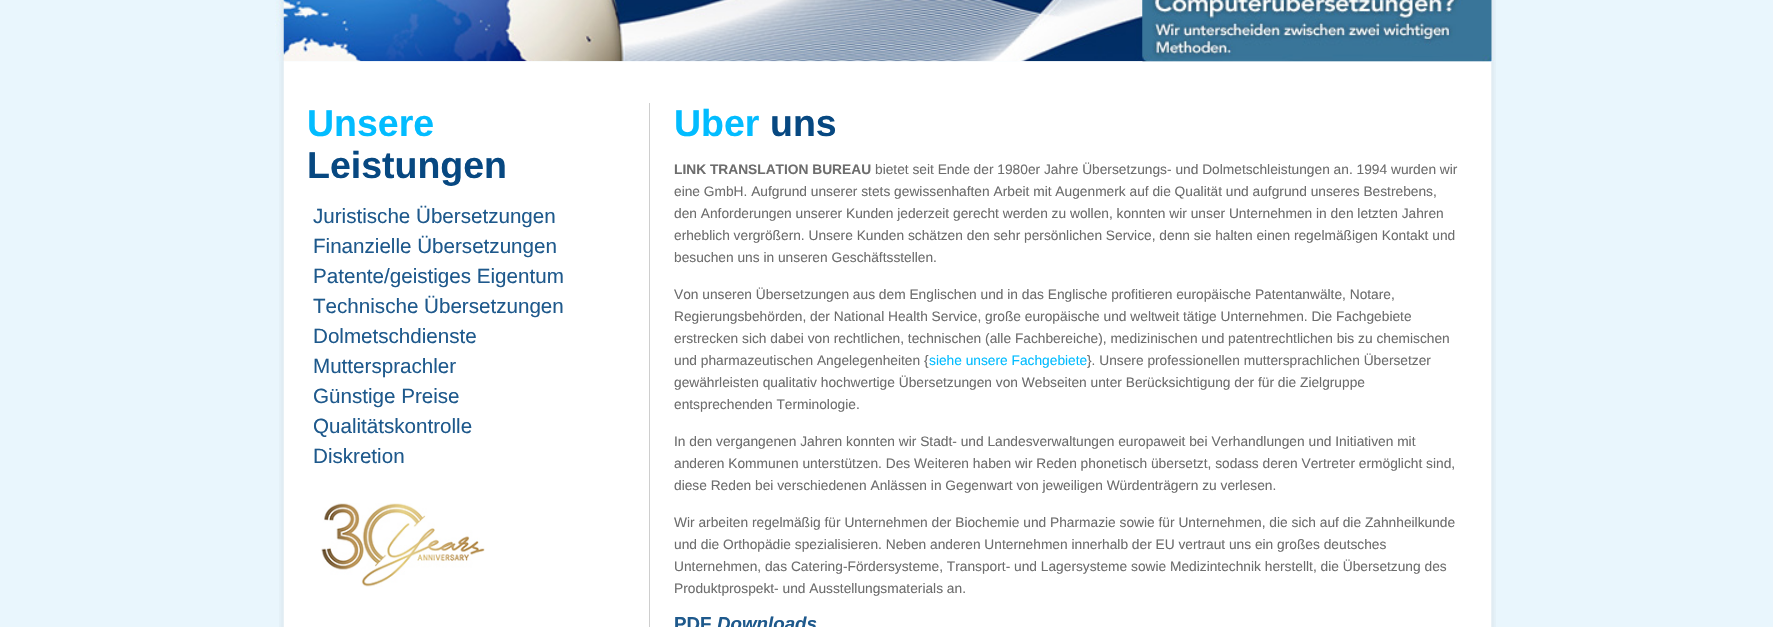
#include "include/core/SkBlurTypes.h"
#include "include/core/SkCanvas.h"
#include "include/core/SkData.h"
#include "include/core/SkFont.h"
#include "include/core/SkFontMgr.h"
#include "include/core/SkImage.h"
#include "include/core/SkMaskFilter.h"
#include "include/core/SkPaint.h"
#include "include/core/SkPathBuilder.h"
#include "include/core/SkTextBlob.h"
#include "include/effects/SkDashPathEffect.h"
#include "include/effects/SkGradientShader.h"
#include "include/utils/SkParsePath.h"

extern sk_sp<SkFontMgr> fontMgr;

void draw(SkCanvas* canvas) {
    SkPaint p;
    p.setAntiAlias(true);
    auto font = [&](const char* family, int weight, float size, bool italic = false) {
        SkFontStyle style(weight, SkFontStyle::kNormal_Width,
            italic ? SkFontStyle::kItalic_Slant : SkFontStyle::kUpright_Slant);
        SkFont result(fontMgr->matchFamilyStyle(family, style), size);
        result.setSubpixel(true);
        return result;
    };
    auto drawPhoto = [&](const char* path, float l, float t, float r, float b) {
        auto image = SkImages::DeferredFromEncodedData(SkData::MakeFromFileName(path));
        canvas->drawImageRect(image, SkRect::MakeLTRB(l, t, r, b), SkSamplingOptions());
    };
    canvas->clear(0xFFE9F6FD);
    drawPhoto("media/1.png", 275, 0, 1496, 62);
    drawPhoto("media/3.png", 279, 61, 1496, 627);
    drawPhoto("media/2.png", 1142, 0, 1492, 62);
    auto font1 = font("Liberation Sans", 700, 37.5f);
    p.setColor(0xFF02BCFF);
    canvas->drawString("Unsere", 307, 136, font1, p);
    p.setColor(0xFF074881);
    canvas->drawString("Leistungen", 307, 178, font1, p);
    auto font2 = font("Liberation Sans", 400, 20.6f);
    p.setColor(0xFF1E598C);
    {
        const struct { const char* s; float x, y; } items[] = {
            {"Juristische Übersetzungen", 313, 223},
            {"Finanzielle Übersetzungen", 313, 253},
            {"Patente/geistiges Eigentum", 313, 283},
            {"Technische Übersetzungen", 313, 313},
            {"Dolmetschdienste", 313, 343},
            {"Muttersprachler", 313, 373},
            {"Günstige Preise", 313, 403},
            {"Qualitätskontrolle", 313, 433},
            {"Diskretion", 313, 463},
        };
        for (auto [s, x, y] : items) {
            canvas->drawString(s, x, y, font2, p);
        }
    }
    drawPhoto("media/4.png", 321, 503, 485, 587);
    p.setColor(0xFFCECECE);
    canvas->drawRect(SkRect::MakeLTRB(649, 103, 650, 627), p);
    p.setColor(0xFF02BCFF);
    canvas->drawString("Uber", 674, 136, font1, p);
    p.setColor(0xFF074881);
    canvas->drawString("uns", 770, 136, font1, p);
    auto font3 = font("Liberation Sans", 700, 13.75f);
    p.setColor(0xFF6D6D6D);
    canvas->drawString("LINK TRANSLATION BUREAU", 674, 174, font3, p);
    auto font4 = font("Liberation Sans", 400, 13.75f);
    {
        const struct { const char* s; float x, y; } items[] = {
            {"bietet seit Ende der 1980er Jahre Übersetzungs- und Dolmetschleistungen an. 1994 wurden wir", 875, 174},
            {"eine GmbH. Aufgrund unserer stets gewissenhaften Arbeit mit Augenmerk auf die Qualität und aufgrund unseres Bestrebens,", 674, 196},
            {"den Anforderungen unserer Kunden jederzeit gerecht werden zu wollen, konnten wir unser Unternehmen in den letzten Jahren", 674, 218},
            {"erheblich vergrößern. Unsere Kunden schätzen den sehr persönlichen Service, denn sie halten einen regelmäßigen Kontakt und", 674, 240},
            {"besuchen uns in unseren Geschäftsstellen.", 674, 262},
            {"Von unseren Übersetzungen aus dem Englischen und in das Englische profitieren europäische Patentanwälte, Notare,", 674, 299},
            {"Regierungsbehörden, der National Health Service, große europäische und weltweit tätige Unternehmen. Die Fachgebiete", 674, 321},
            {"erstrecken sich dabei von rechtlichen, technischen (alle Fachbereiche), medizinischen und patentrechtlichen bis zu chemischen", 674, 343},
            {"und pharmazeutischen Angelegenheiten {", 674, 365},
        };
        for (auto [s, x, y] : items) {
            canvas->drawString(s, x, y, font4, p);
        }
    }
    p.setColor(0xFF02BCFF);
    canvas->drawString("siehe unsere Fachgebiete", 929, 365, font4, p);
    p.setColor(0xFF6D6D6D);
    {
        const struct { const char* s; float x, y; } items[] = {
            {"}. Unsere professionellen muttersprachlichen Übersetzer", 1087, 365},
            {"gewährleisten qualitativ hochwertige Übersetzungen von Webseiten unter Berücksichtigung der für die Zielgruppe", 674, 387},
            {"entsprechenden Terminologie.", 674, 409},
            {"In den vergangenen Jahren konnten wir Stadt- und Landesverwaltungen europaweit bei Verhandlungen und Initiativen mit", 674, 446},
            {"anderen Kommunen unterstützen. Des Weiteren haben wir Reden phonetisch übersetzt, sodass deren Vertreter ermöglicht sind,", 674, 468},
            {"diese Reden bei verschiedenen Anlässen in Gegenwart von jeweiligen Würdenträgern zu verlesen.", 674, 490},
            {"Wir arbeiten regelmäßig für Unternehmen der Biochemie und Pharmazie sowie für Unternehmen, die sich auf die Zahnheilkunde", 674, 527},
            {"und die Orthopädie spezialisieren. Neben anderen Unternehmen innerhalb der EU vertraut uns ein großes deutsches", 674, 549},
            {"Unternehmen, das Catering-Fördersysteme, Transport- und Lagersysteme sowie Medizintechnik herstellt, die Übersetzung des", 674, 571},
            {"Produktprospekt- und Ausstellungsmaterials an.", 674, 593},
        };
        for (auto [s, x, y] : items) {
            canvas->drawString(s, x, y, font4, p);
        }
    }
    auto font5 = font("Liberation Sans", 700, 18.75f);
    p.setColor(0xFF1E598C);
    canvas->drawString("PDF", 674, 630, font5, p);
    auto font6 = font("Liberation Sans", 700, 18.75f, true);
    canvas->drawString("Downloads", 717, 630, font6, p);
}
